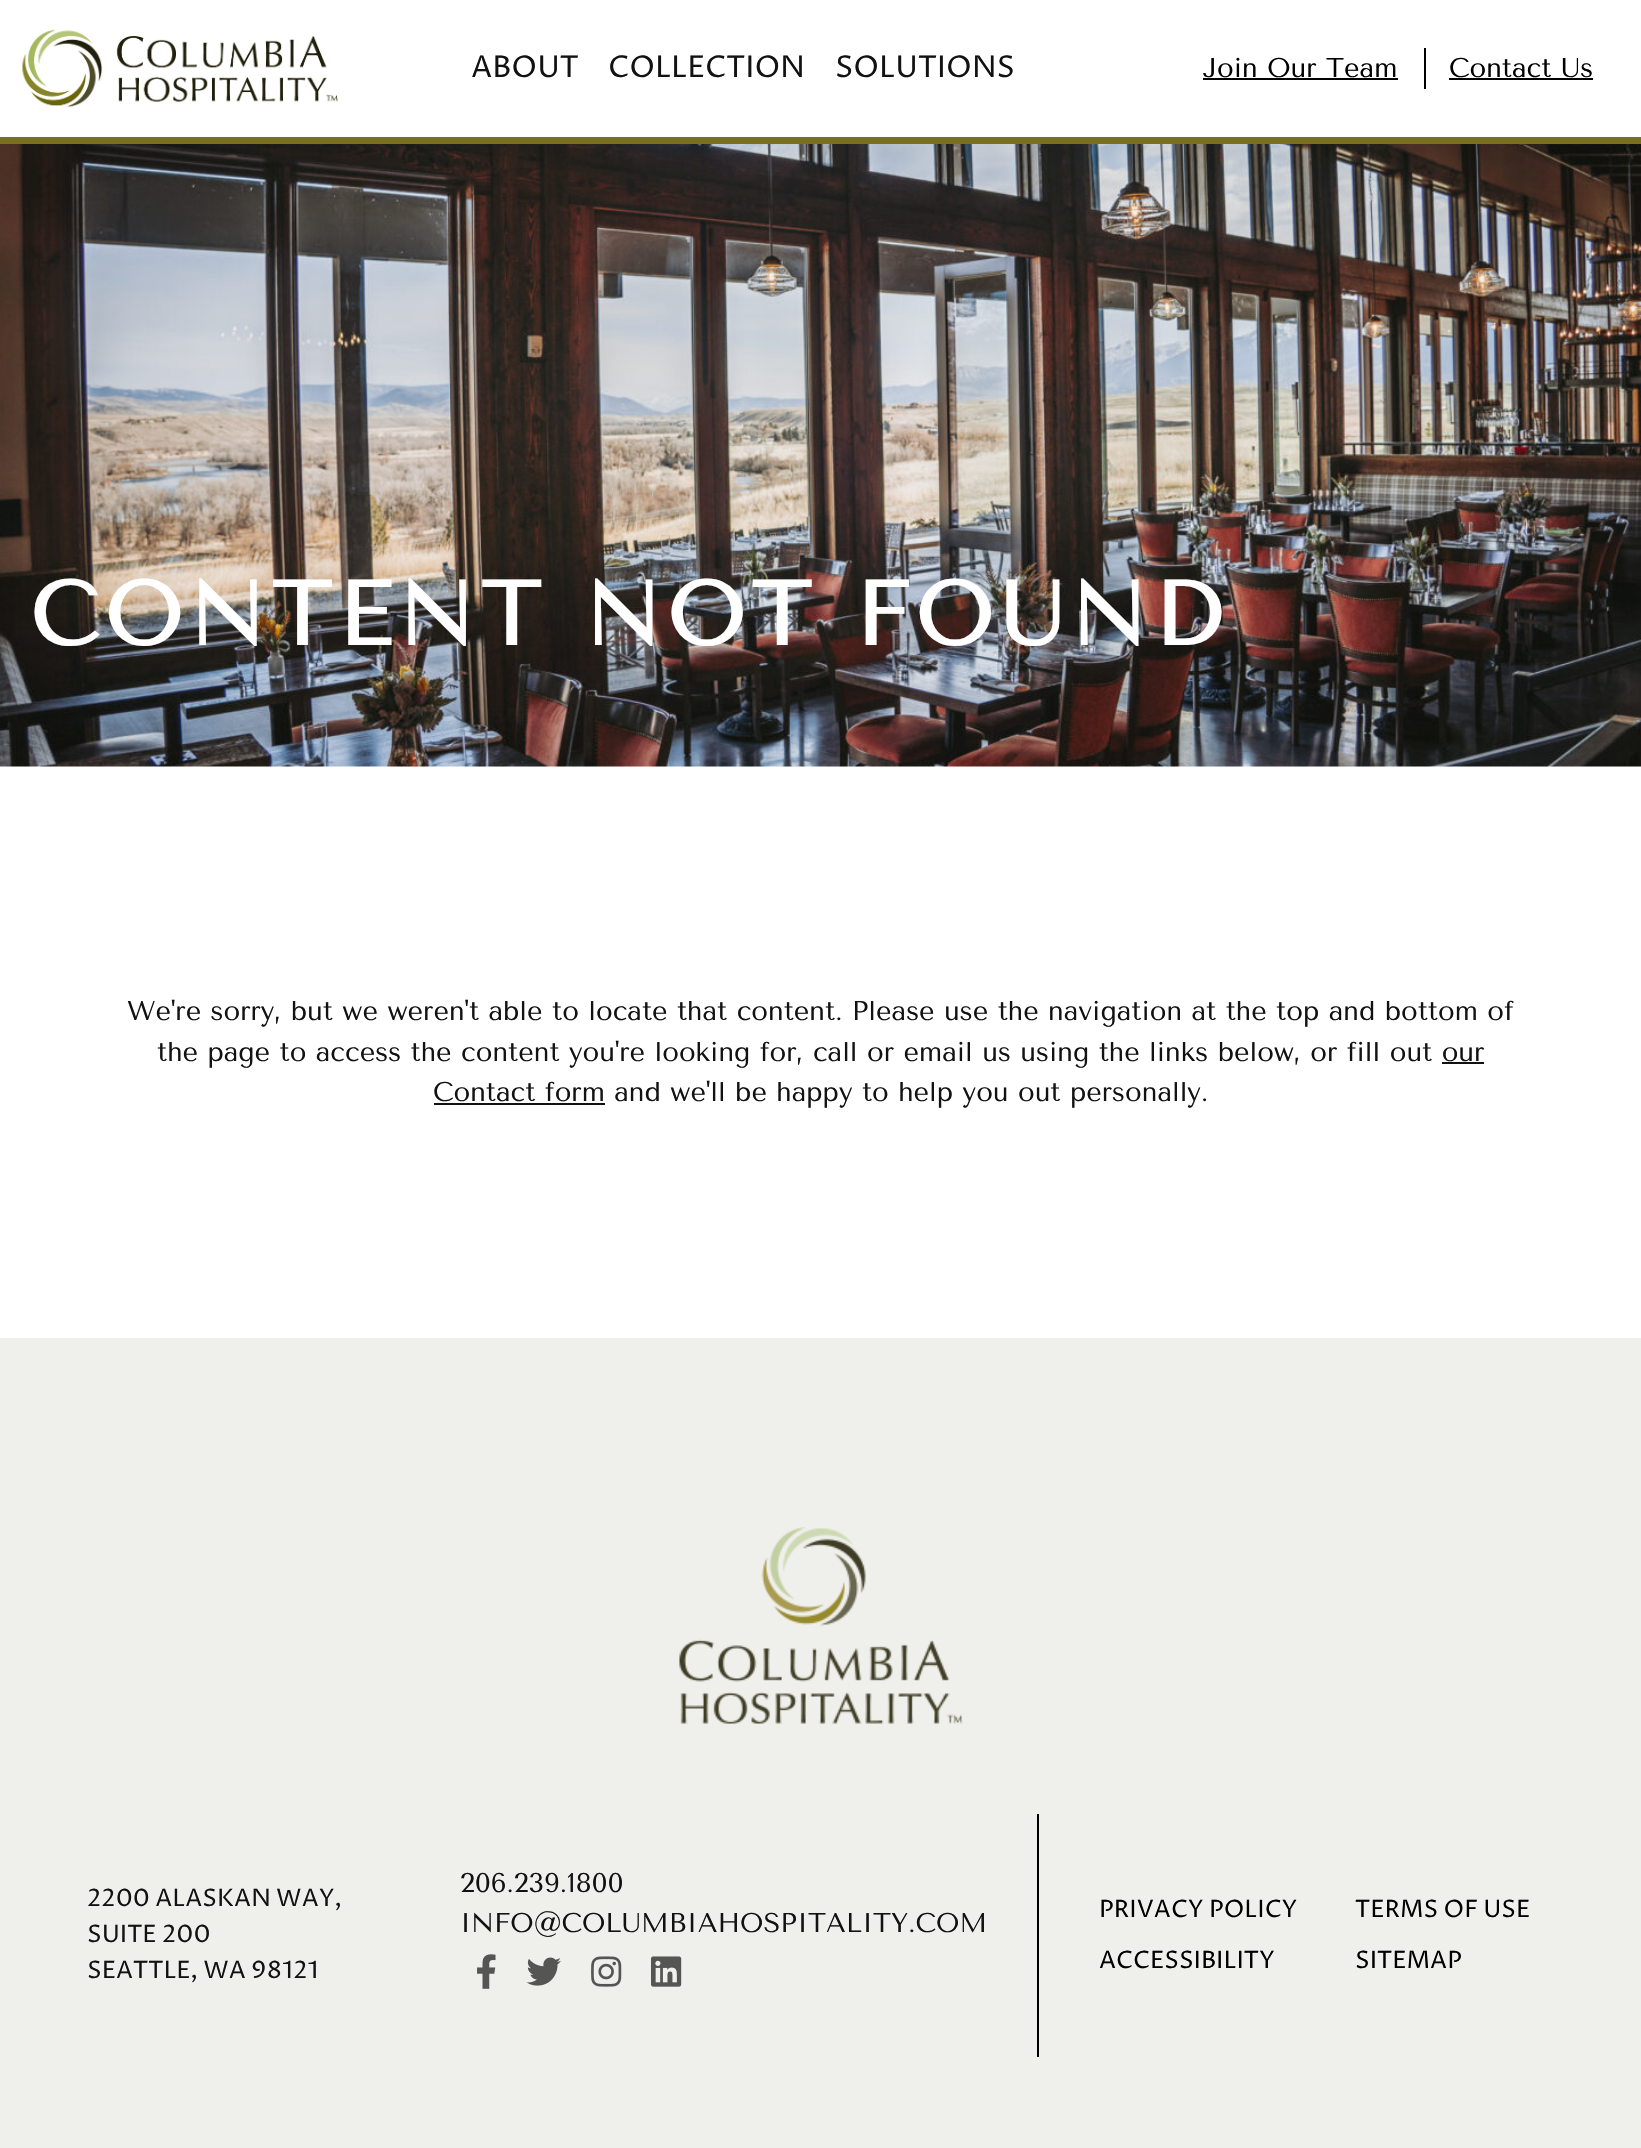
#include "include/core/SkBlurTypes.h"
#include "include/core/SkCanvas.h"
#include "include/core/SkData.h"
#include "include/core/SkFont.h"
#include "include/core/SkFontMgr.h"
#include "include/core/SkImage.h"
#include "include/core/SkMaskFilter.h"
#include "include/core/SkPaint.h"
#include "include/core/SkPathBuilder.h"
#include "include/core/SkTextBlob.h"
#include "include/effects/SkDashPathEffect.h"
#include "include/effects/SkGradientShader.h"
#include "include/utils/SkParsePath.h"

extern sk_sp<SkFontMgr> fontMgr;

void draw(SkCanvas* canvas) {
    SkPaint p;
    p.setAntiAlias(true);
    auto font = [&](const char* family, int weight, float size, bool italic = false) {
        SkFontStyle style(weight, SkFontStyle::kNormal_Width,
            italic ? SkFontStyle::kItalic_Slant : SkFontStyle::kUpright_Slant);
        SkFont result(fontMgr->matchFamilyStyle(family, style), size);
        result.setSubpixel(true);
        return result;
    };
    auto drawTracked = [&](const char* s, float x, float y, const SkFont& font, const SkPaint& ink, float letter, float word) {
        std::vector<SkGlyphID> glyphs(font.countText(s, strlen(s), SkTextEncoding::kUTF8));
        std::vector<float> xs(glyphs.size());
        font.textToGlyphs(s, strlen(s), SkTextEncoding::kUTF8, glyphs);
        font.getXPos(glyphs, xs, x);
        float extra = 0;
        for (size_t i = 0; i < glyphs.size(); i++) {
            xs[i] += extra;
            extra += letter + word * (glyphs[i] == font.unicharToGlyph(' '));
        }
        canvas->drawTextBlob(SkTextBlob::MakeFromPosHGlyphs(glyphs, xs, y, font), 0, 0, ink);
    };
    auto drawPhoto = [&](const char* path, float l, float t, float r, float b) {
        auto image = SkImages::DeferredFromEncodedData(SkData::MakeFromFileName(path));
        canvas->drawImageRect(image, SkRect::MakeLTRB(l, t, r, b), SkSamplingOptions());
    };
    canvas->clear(0xFFFFFFFF);
    p.setColor(0xFF796F22);
    canvas->drawRect(SkRect::MakeLTRB(0, 137, 1641, 144), p);
    drawPhoto("media/1.png", 22, 29, 338, 108);
    auto font1 = font("Proza Libre", 400, 30);
    p.setColor(0xFF121212);
    {
        const struct { const char* s; float x, y; } items[] = {
            {"ABOUT", 471, 77},
            {"COLLECTION", 608, 77},
            {"SOLUTIONS", 835, 77},
        };
        for (auto [s, x, y] : items) {
            canvas->drawString(s, x, y, font1, p);
        }
    }
    p.setColor(0xFF000000);
    canvas->drawRect(SkRect::MakeLTRB(1424, 48, 1426, 89), p);
    auto font2 = font("Tenor Sans", 400, 27);
    canvas->drawString("Join Our Team", 1203, 77, font2, p);
    canvas->drawRect(SkRect::MakeLTRB(1203, 78, 1398, 80), p);
    canvas->drawString("Contact Us", 1449, 77, font2, p);
    canvas->drawRect(SkRect::MakeLTRB(1449, 78, 1593, 80), p);
    drawPhoto("media/2.png", 0, 144, 1641, 767);
    auto font3 = font("Tenor Sans", 700, 89.9f);
    p.setColor(0xFFFFFFFF);
    drawTracked("CONTENT NOT FOUND", 30, 645, font3, p, 6.25f, 0);
    p.setColor(0xFF121212);
    canvas->drawString("We're sorry, but we weren't able to locate that content. Please use the navigation at the top and bottom of", 127, 1020, font2, p);
    canvas->drawString("the page to access the content you're looking for, call or email us using the links below, or fill out our", 157, 1061, font2, p);
    canvas->drawRect(SkRect::MakeLTRB(434, 1103, 605, 1105), p);
    canvas->drawString("Contact form and we'll be happy to help you out personally.", 433, 1101, font2, p);
    canvas->drawRect(SkRect::MakeLTRB(1442, 1062, 1484, 1064), p);
    p.setColor(0xFFEFEFEB);
    canvas->drawRect(SkRect::MakeLTRB(0, 1338, 1641, 2148), p);
    drawPhoto("media/3.png", 679, 1527, 963, 1724);
    p.setColor(0xFF000000);
    canvas->drawRect(SkRect::MakeLTRB(1037, 1814, 1039, 2057), p);
    auto font4 = font("Proza Libre", 400, 24);
    p.setColor(0xFF121212);
    {
        const struct { const char* s; float x, y; } items[] = {
            {"2200 ALASKAN WAY,", 87, 1906},
            {"SUITE 200", 87, 1942},
            {"SEATTLE, WA 98121", 87, 1978},
        };
        for (auto [s, x, y] : items) {
            canvas->drawString(s, x, y, font4, p);
        }
    }
    canvas->drawString("206.239.1800", 460, 1892, font2, p);
    canvas->drawString("INFO@COLUMBIAHOSPITALITY.COM", 460, 1932, font2, p);
    drawPhoto("media/4.png", 477, 1954, 496, 1989);
    drawPhoto("media/5.png", 526, 1957, 561, 1986);
    drawPhoto("media/6.png", 591, 1956, 622, 1987);
    drawPhoto("media/7.png", 651, 1956, 682, 1987);
    p.setColor(0xFF000000);
    {
        const struct { const char* s; float x, y; } items[] = {
            {"PRIVACY POLICY", 1099, 1917},
            {"TERMS OF USE", 1355, 1917},
            {"ACCESSIBILITY", 1099, 1968},
            {"SITEMAP", 1355, 1968},
        };
        for (auto [s, x, y] : items) {
            canvas->drawString(s, x, y, font4, p);
        }
    }
}
